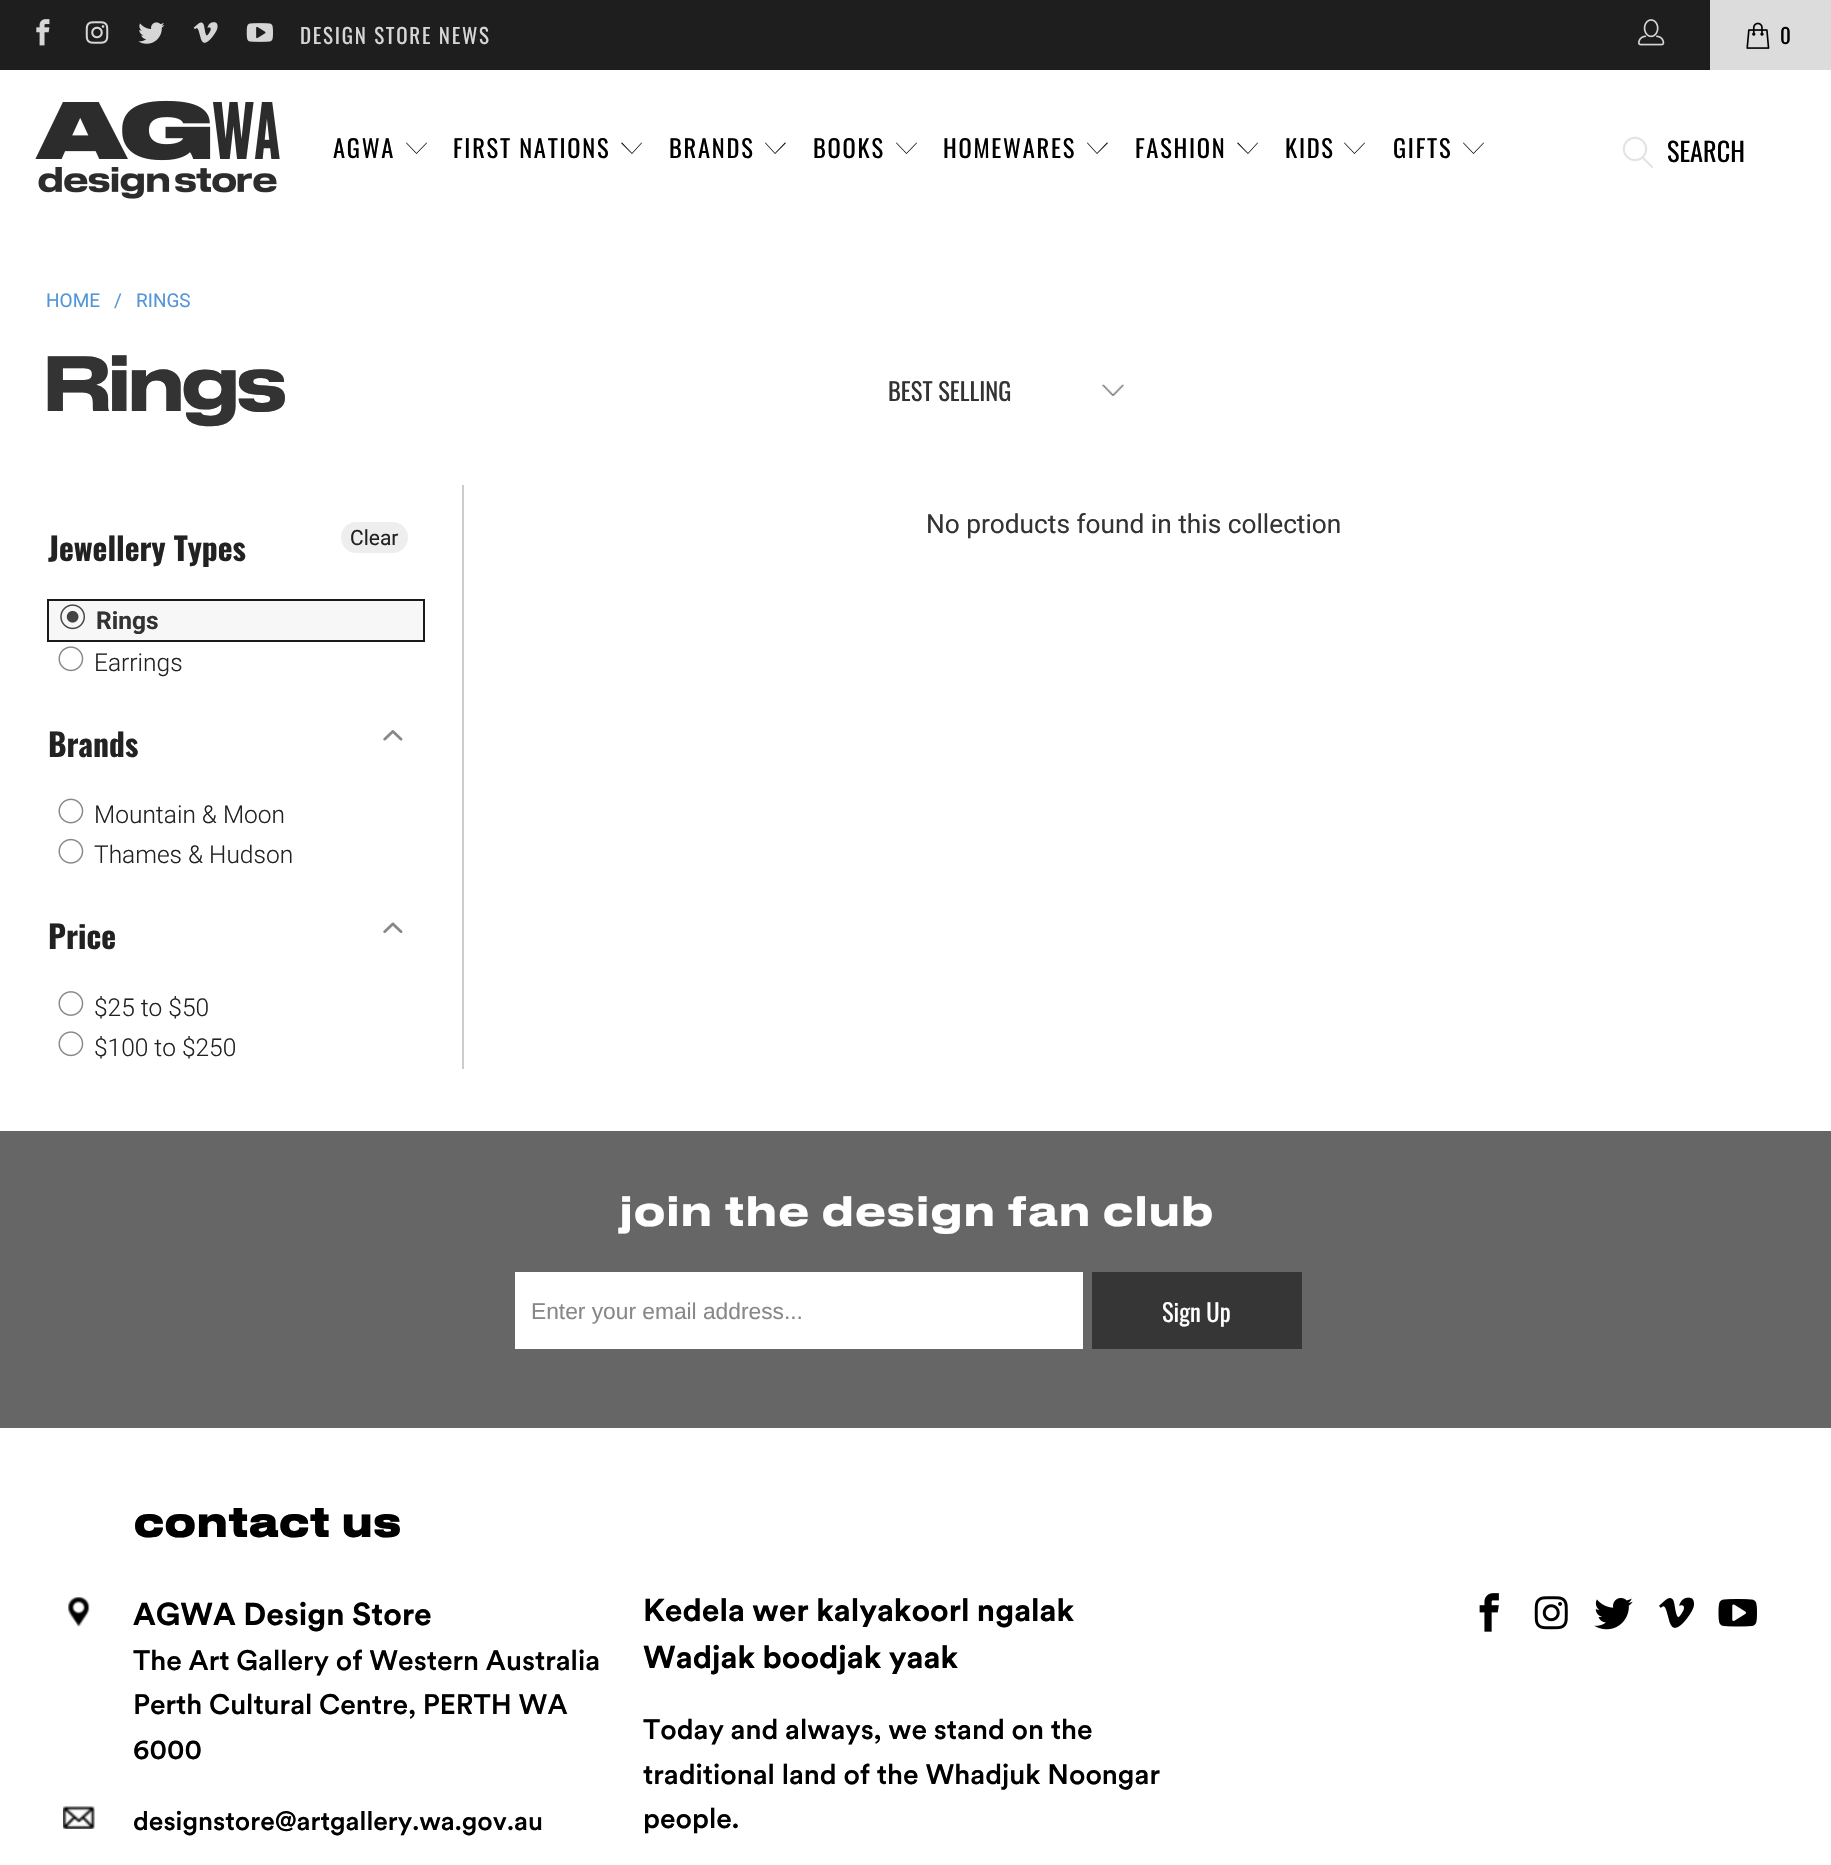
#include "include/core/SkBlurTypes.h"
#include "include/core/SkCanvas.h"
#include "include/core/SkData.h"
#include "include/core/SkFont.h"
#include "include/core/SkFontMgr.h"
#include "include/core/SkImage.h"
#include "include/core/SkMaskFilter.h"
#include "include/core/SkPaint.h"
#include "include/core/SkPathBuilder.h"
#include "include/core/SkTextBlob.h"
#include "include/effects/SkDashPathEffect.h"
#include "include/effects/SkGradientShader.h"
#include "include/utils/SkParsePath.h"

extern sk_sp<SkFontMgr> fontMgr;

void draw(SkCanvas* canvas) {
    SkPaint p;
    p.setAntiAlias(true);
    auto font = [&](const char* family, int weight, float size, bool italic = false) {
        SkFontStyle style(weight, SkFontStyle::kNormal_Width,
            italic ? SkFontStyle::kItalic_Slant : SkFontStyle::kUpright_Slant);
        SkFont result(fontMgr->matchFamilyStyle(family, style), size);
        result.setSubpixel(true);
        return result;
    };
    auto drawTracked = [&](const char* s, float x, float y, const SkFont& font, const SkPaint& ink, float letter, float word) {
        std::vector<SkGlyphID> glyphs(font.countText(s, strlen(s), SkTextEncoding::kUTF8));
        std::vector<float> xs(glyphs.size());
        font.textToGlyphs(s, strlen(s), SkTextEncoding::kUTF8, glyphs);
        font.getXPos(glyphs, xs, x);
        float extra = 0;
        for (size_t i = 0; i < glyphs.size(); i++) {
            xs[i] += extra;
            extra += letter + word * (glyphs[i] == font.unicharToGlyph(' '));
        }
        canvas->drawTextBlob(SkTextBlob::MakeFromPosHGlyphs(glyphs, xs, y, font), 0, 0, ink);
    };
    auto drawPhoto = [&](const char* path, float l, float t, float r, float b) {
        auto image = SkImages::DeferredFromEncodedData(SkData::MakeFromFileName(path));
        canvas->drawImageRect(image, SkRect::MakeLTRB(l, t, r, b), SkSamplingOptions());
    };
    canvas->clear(0xFFFFFFFF);
    p.setColor(0xFF1E1E1E);
    canvas->drawRect(SkRect::MakeLTRB(0, 0, 1710, 70), p);
    drawPhoto("media/1.png", 36, 19, 50, 46);
    drawPhoto("media/2.png", 85, 21, 109, 44);
    drawPhoto("media/3.png", 138, 22, 165, 44);
    drawPhoto("media/4.png", 193, 22, 218, 43);
    drawPhoto("media/5.png", 246, 23, 273, 42);
    auto font1 = font("Oswald", 400, 21);
    p.setColor(0xFFD6D6D6);
    drawTracked("DESIGN STORE NEWS", 300, 44, font1, p, 1.75f, 0);
    drawPhoto("media/6.png", 1638, 19, 1665, 46);
    p.setColor(0xFFDCDCDC);
    canvas->drawRect(SkRect::MakeLTRB(1710, 0, 1831, 70), p);
    drawPhoto("media/7.png", 1746, 22, 1770, 49);
    p.setColor(0xFF000000);
    drawTracked("0", 1780, 44, font1, p, 1.75f, 0);
    drawPhoto("media/8.png", 35, 100, 280, 199);
    auto font2 = font("Oswald", 400, 24.5f);
    drawTracked("AGWA", 333, 158, font2, p, 1.75f, 0);
    canvas->drawPath(SkPathBuilder().moveTo(416.5f, 154).lineTo(406, 143).lineTo(406.5f, 142.5f).lineTo(416.5f, 153).lineTo(426.5f, 142.5f).lineTo(427, 143).close().detach(), p);
    drawTracked("FIRST NATIONS", 453, 158, font2, p, 1.75f, 0);
    canvas->drawPath(SkPathBuilder().moveTo(632, 154).lineTo(621, 143).lineTo(622, 142.5f).lineTo(632, 153).lineTo(641.5f, 142.5f).lineTo(642, 143).close().detach(), p);
    drawTracked("BRANDS", 669, 158, font2, p, 1.75f, 0);
    canvas->drawPath(SkPathBuilder().moveTo(775, 154).lineTo(765, 143).lineTo(765.5f, 142.5f).lineTo(775, 153).lineTo(785, 142.5f).lineTo(786, 143).close().detach(), p);
    drawTracked("BOOKS", 813, 158, font2, p, 1.75f, 0);
    canvas->drawPath(SkPathBuilder().moveTo(906.5f, 154).lineTo(896, 143).lineTo(896.5f, 142.5f).lineTo(906.5f, 153).lineTo(916.5f, 142.5f).lineTo(917, 143).close().detach(), p);
    drawTracked("HOMEWARES", 943, 158, font2, p, 1.75f, 0);
    canvas->drawPath(SkPathBuilder().moveTo(1097, 154).lineTo(1087, 143).lineTo(1087.5f, 142.5f).lineTo(1097, 153).lineTo(1107, 142.5f).lineTo(1108, 143).close().detach(), p);
    drawTracked("FASHION", 1135, 158, font2, p, 1.75f, 0);
    canvas->drawPath(SkPathBuilder().moveTo(1248, 154).lineTo(1237, 143).lineTo(1238, 142.5f).lineTo(1248, 153).lineTo(1257.5f, 142.5f).lineTo(1258, 143).close().detach(), p);
    drawTracked("KIDS", 1285, 158, font2, p, 1.75f, 0);
    canvas->drawPath(SkPathBuilder().moveTo(1354.5f, 154).lineTo(1344, 143).lineTo(1344.5f, 142.5f).lineTo(1354.5f, 153).lineTo(1364.5f, 142.5f).lineTo(1365, 143).close().detach(), p);
    drawTracked("GIFTS", 1393, 158, font2, p, 1.75f, 0);
    canvas->drawPath(SkPathBuilder().moveTo(1473.5f, 154).lineTo(1463, 143).lineTo(1463.5f, 142.5f).lineTo(1473.5f, 153).lineTo(1483.5f, 142.5f).lineTo(1484, 143).close().detach(), p);
    drawPhoto("media/9.png", 1622, 136, 1654, 168);
    auto font3 = font("Oswald", 400, 26.25f);
    canvas->drawString("SEARCH", 1667, 162, font3, p);
    auto font4 = font("Roboto", 400, 19);
    p.setColor(0xFF5396D7);
    {
        const struct { const char* s; float x, y; } items[] = {
            {"HOME", 46, 307},
            {"/", 114, 307},
            {"RINGS", 136, 307},
        };
        for (auto [s, x, y] : items) {
            canvas->drawString(s, x, y, font4, p);
        }
    }
    auto font5 = font("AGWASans", 500, 73.5f);
    p.setColor(0xFF333333);
    drawTracked("Rings", 41, 411, font5, p, -7, 0);
    drawPhoto("media/10.png", 1102, 383, 1124, 397);
    canvas->drawString("BEST SELLING", 888, 401, font2, p);
    auto font6 = font("Roboto", 400, 26.25f);
    canvas->drawString("No products found in this collection", 926, 533, font6, p);
    p.setColor(0xFFCCCCCC);
    canvas->drawRect(SkRect::MakeLTRB(462, 485, 464, 1069), p);
    auto font7 = font("Oswald", 700, 31.5f);
    p.setColor(0xFF222222);
    canvas->drawString("Jewellery Types", 48, 561, font7, p);
    p.setColor(0xFFEEEEEE);
    canvas->drawRoundRect(SkRect::MakeLTRB(341, 522, 408, 553), 15.5f, 15.5f, p);
    auto font8 = font("Roboto", 400, 21);
    p.setColor(0xFF222222);
    canvas->drawString("Clear", 350, 545, font8, p);
    p.setColor(0xFFF7F7F7);
    canvas->drawRect(SkRect::MakeLTRB(48, 600, 424, 641), p);
    p.setStyle(SkPaint::kStroke_Style);
    p.setStrokeWidth(2);
    p.setColor(0xFF1A1A1A);
    canvas->drawRect(SkRect::MakeLTRB(48, 600, 424, 641), p);
    drawPhoto("media/11.png", 60, 604, 85, 630);
    auto font9 = font("Roboto", 700, 24.5f);
    p.setStyle(SkPaint::kFill_Style);
    p.setColor(0xFF333333);
    canvas->drawString("Rings", 96, 629, font9, p);
    drawPhoto("media/12.png", 58, 646, 84, 672);
    auto font10 = font("Roboto", 300, 24.5f);
    p.setColor(0xFF222222);
    canvas->drawString("Earrings", 94, 671, font10, p);
    canvas->drawString("Brands", 48, 757, font7, p);
    drawPhoto("media/13.png", 383, 730, 403, 741);
    drawPhoto("media/14.png", 58, 798, 84, 824);
    canvas->drawString("Mountain & Moon", 94, 823, font10, p);
    drawPhoto("media/15.png", 58, 838, 84, 864);
    canvas->drawString("Thames & Hudson", 94, 863, font10, p);
    canvas->drawString("Price", 48, 949, font7, p);
    drawPhoto("media/16.png", 383, 922, 403, 933);
    drawPhoto("media/17.png", 58, 991, 84, 1016);
    canvas->drawString("$25 to $50", 94, 1016, font10, p);
    drawPhoto("media/12.png", 58, 1031, 84, 1057);
    canvas->drawString("$100 to $250", 94, 1056, font10, p);
    p.setColor(0xFF666666);
    canvas->drawRect(SkRect::MakeLTRB(0, 1131, 1831, 1428), p);
    auto font11 = font("AGWASans", 500, 39.4f);
    p.setColor(0xFFFFFFFF);
    canvas->drawString("join the design fan club", 619, 1226, font11, p);
    canvas->drawRect(SkRect::MakeLTRB(515, 1272, 1083, 1349), p);
    auto font12 = font("Liberation Sans", 400, 22.75f);
    p.setColor(0xFF888888);
    canvas->drawString("Enter your email address...", 531, 1319, font12, p);
    p.setColor(0xFF363636);
    canvas->drawRect(SkRect::MakeLTRB(1092, 1272, 1302, 1349), p);
    p.setColor(0xFFFFFFFF);
    canvas->drawString("Sign Up", 1162, 1322, font2, p);
    auto font13 = font("AGWASans", 700, 38.5f);
    p.setColor(0xFF000000);
    canvas->drawString("contact us", 133, 1537, font13, p);
    drawPhoto("media/18.png", 68, 1597, 90, 1627);
    auto font14 = font("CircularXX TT", 700, 31.5f);
    canvas->drawString("AGWA Design Store", 133, 1625, font14, p);
    auto font15 = font("CircularXX TT", 500, 28);
    {
        const struct { const char* s; float x, y; } items[] = {
            {"The Art Gallery of Western Australia", 133, 1670},
            {"Perth Cultural Centre, PERTH WA", 133, 1714},
            {"6000", 133, 1759},
        };
        for (auto [s, x, y] : items) {
            canvas->drawString(s, x, y, font15, p);
        }
    }
    drawPhoto("media/19.png", 63, 1806, 95, 1829);
    auto font16 = font("CircularXX TT", 500, 26.25f);
    canvas->drawString("designstore@artgallery.wa.gov.au", 133, 1830, font16, p);
    canvas->drawString("Kedela wer kalyakoorl ngalak", 643, 1621, font14, p);
    canvas->drawString("Wadjak boodjak yaak", 643, 1668, font14, p);
    {
        const struct { const char* s; float x, y; } items[] = {
            {"Today and always, we stand on the", 643, 1739},
            {"traditional land of the Whadjuk Noongar", 643, 1784},
            {"people.", 643, 1828},
        };
        for (auto [s, x, y] : items) {
            canvas->drawString(s, x, y, font15, p);
        }
    }
    drawPhoto("media/20.png", 1479, 1593, 1499, 1632);
    drawPhoto("media/21.png", 1534, 1596, 1568, 1630);
    drawPhoto("media/22.png", 1594, 1598, 1633, 1630);
    drawPhoto("media/23.png", 1659, 1597, 1694, 1628);
    drawPhoto("media/24.png", 1718, 1599, 1757, 1627);
}
